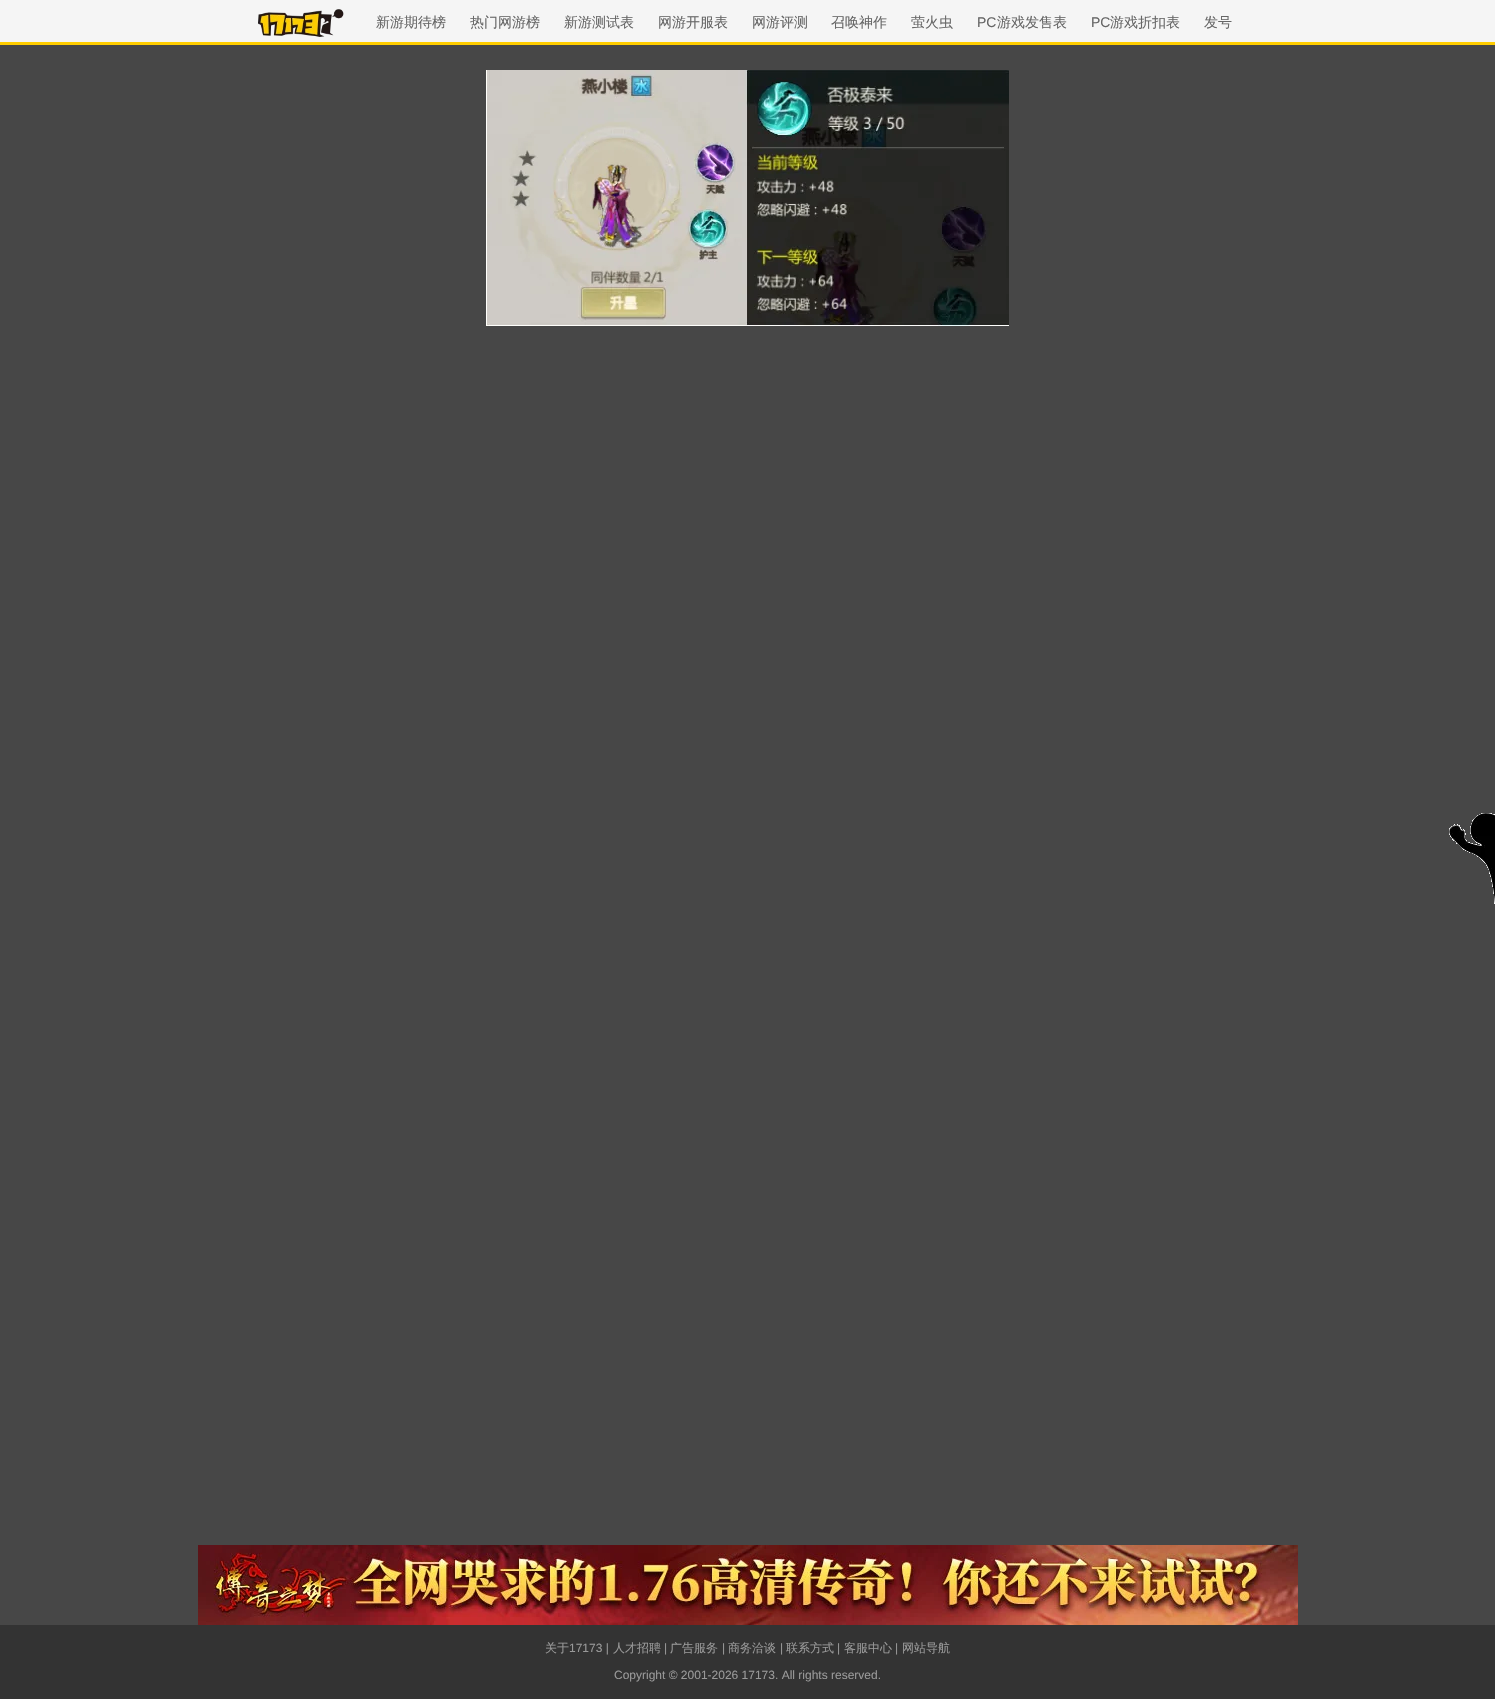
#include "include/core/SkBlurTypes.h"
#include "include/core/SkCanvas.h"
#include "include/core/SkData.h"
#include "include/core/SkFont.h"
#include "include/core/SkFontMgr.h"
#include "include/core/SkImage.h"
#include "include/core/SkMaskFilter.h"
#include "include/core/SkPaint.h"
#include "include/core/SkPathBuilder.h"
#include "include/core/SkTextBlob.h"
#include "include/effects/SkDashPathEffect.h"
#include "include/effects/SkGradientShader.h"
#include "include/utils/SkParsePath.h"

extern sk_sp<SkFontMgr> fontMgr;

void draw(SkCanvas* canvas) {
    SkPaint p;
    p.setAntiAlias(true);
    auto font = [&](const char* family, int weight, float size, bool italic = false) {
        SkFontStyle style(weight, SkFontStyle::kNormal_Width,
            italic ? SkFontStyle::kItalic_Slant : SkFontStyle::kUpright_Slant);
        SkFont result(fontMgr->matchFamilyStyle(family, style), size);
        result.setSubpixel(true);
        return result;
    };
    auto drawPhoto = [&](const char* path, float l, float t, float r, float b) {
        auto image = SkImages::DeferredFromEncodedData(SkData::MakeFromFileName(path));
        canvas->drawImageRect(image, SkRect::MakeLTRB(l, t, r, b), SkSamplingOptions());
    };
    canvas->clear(0xFF474747);
    p.setColor(0xFFF5F5F5);
    canvas->drawRect(SkRect::MakeLTRB(0, 0, 1495, 42), p);
    p.setColor(0xFFFFCD00);
    canvas->drawRect(SkRect::MakeLTRB(0, 42, 1495, 45), p);
    drawPhoto("media/1.png", 258, 9, 344, 37);
    auto font1 = font("WenQuanYi Zen Hei", 500, 14);
    p.setColor(0xFF666666);
    {
        const struct { const char* s; float x, y; } items[] = {
            {"新游期待榜", 376, 27},
            {"热门网游榜", 470, 27},
            {"新游测试表", 564, 27},
            {"网游开服表", 658, 27},
            {"网游评测", 752, 27},
            {"召唤神作", 831, 27},
            {"萤火虫", 911, 27},
        };
        for (auto [s, x, y] : items) {
            canvas->drawString(s, x, y, font1, p);
        }
    }
    auto font2 = font("Liberation Sans", 400, 14);
    canvas->drawString("PC", 977, 27, font2, p);
    canvas->drawString("游戏发售表", 997, 27, font1, p);
    canvas->drawString("PC", 1091, 27, font2, p);
    canvas->drawString("游戏折扣表", 1110, 27, font1, p);
    canvas->drawString("发号", 1204, 27, font1, p);
    drawPhoto("media/2.png", 486, 70, 1009, 326);
    drawPhoto("media/3.png", 198, 1545, 1298, 1625);
    drawPhoto("media/4.png", 1449, 813, 1495, 904);
    p.setColor(0xFF333333);
    canvas->drawRect(SkRect::MakeLTRB(0, 1625, 1495, 1699), p);
    auto font3 = font("WenQuanYi Zen Hei", 500, 12);
    p.setColor(0xFF999999);
    canvas->drawString("关于", 545, 1652, font3, p);
    auto font4 = font("Liberation Sans", 400, 12);
    canvas->drawString("17173 |", 569, 1652, font4, p);
    canvas->drawString("人才招聘", 613, 1652, font3, p);
    canvas->drawString("|", 664, 1652, font4, p);
    canvas->drawString("广告服务", 670, 1652, font3, p);
    canvas->drawString("|", 722, 1652, font4, p);
    canvas->drawString("商务洽谈", 728, 1652, font3, p);
    canvas->drawString("|", 780, 1652, font4, p);
    canvas->drawString("联系方式", 786, 1652, font3, p);
    canvas->drawString("|", 837, 1652, font4, p);
    canvas->drawString("客服中心", 844, 1652, font3, p);
    canvas->drawString("|", 895, 1652, font4, p);
    canvas->drawString("网站导航", 902, 1652, font3, p);
    canvas->drawString("Copyright © 2001-2026 17173. All rights reserved.", 614, 1679, font4, p);
}
